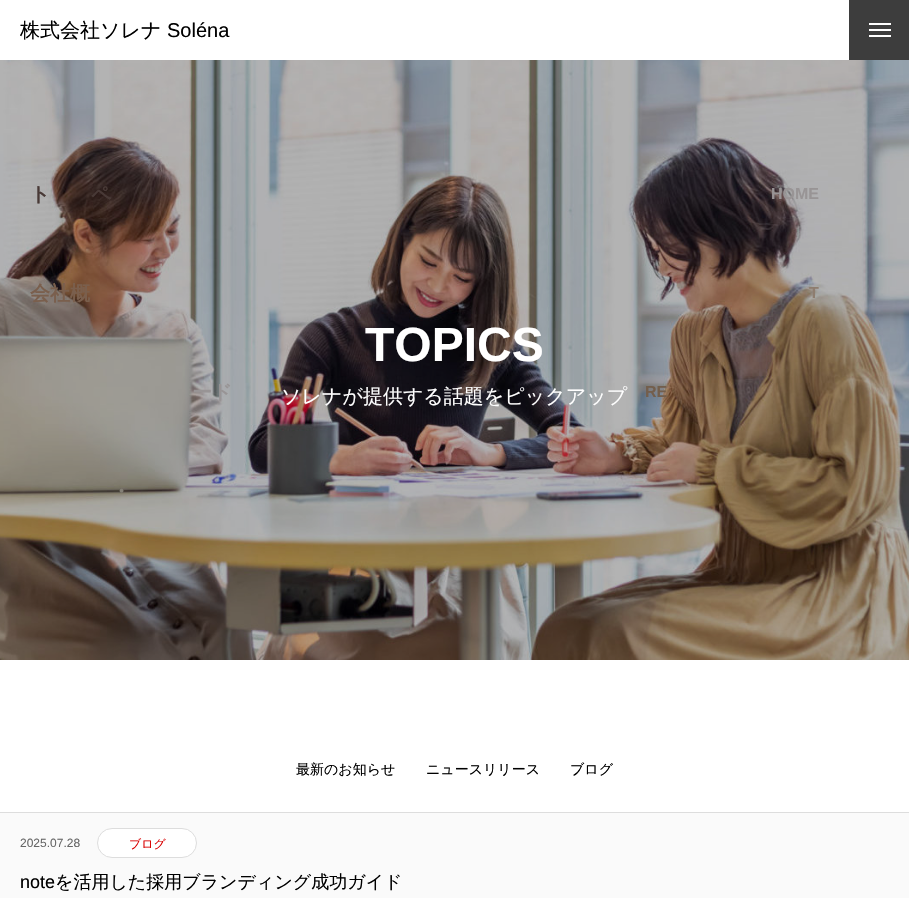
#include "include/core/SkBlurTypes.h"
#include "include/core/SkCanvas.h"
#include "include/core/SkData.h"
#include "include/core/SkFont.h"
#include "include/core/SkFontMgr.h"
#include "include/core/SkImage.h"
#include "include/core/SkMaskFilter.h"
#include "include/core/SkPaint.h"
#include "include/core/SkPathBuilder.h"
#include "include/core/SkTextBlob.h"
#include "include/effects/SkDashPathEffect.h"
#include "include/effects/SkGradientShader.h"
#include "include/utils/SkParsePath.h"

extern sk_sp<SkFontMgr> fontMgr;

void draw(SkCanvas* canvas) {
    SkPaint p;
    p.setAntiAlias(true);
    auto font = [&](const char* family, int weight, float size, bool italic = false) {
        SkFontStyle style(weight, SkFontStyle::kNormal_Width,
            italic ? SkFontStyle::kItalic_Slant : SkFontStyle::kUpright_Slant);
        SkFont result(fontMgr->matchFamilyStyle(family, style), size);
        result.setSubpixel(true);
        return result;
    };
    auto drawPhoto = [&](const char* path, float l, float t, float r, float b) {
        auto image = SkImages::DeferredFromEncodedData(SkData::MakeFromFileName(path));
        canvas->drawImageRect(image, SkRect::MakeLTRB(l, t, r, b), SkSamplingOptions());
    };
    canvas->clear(0xFFFFFFFF);
    auto font1 = font("WenQuanYi Zen Hei", 500, 20);
    p.setColor(0xFF000000);
    canvas->drawString("株式会社ソレナ", 20, 37, font1, p);
    auto font2 = font("Liberation Sans", 400, 20);
    canvas->drawString("Soléna", 167, 37, font2, p);
    {
        const struct { float l, t, r, b; SkColor color; } items[] = {
            {849, 0, 909, 60, 0xFF3D3D3D},
            {869, 23, 891, 25, 0xFFFFFFFF},
            {869, 29, 891, 31, 0xFFFFFFFF},
            {869, 35, 891, 37, 0xFFFFFFFF},
        };
        for (auto [l, t, r, b, color] : items) {
            p.setColor(color);
            canvas->drawRect(SkRect::MakeLTRB(l, t, r, b), p);
        }
    }
    drawPhoto("media/1.png", 0, 60, 909, 660);
    auto font3 = font("WenQuanYi Zen Hei", 700, 20);
    p.setColor(0xFF483936);
    canvas->drawString("ト", 30, 201, font3, p);
    canvas->drawString("ペ", 91, 201, font3, p);
    auto font4 = font("Liberation Sans", 700, 16);
    p.setColor(0xFF989495);
    canvas->drawString("HOME", 771, 199, font4, p);
    p.setColor(0xFF7A5F4D);
    canvas->drawString("会社概", 30, 300, font3, p);
    p.setColor(0xFF8E7D6F);
    canvas->drawString("T", 809, 298, font4, p);
    p.setColor(0xFF989495);
    canvas->drawString("ード", 192, 399, font3, p);
    p.setColor(0xFF735E4C);
    canvas->drawString("RE", 645, 397, font4, p);
    p.setColor(0xFF848076);
    canvas->drawString("・", 111, 498, font3, p);
    auto font5 = font("Liberation Sans", 700, 48);
    p.setColor(0xFFFFFFFF);
    canvas->drawString("TOPICS", 365, 361, font5, p);
    canvas->drawString("ソレナが提供する話題をピックアップ", 281, 403, font1, p);
    auto font6 = font("WenQuanYi Zen Hei", 500, 14);
    p.setColor(0xFF000000);
    {
        const struct { const char* s; float x, y; } items[] = {
            {"最新のお知らせ", 296, 774},
            {"ニュースリリース", 426, 774},
            {"ブログ", 570, 774},
        };
        for (auto [s, x, y] : items) {
            canvas->drawString(s, x, y, font6, p);
        }
    }
    p.setColor(0xFFFAFAFA);
    canvas->drawRect(SkRect::MakeLTRB(0, 813, 909, 898), p);
    p.setColor(0xFFDDDDDD);
    canvas->drawRect(SkRect::MakeLTRB(0, 812, 909, 813), p);
    auto font7 = font("Liberation Sans", 400, 12);
    p.setColor(0xFF666666);
    canvas->drawString("2025.07.28", 20, 847, font7, p);
    p.setColor(0xFFFFFFFF);
    canvas->drawRoundRect(SkRect::MakeLTRB(97.5f, 828.5f, 196.5f, 857.5f), 14.5f, 14.5f, p);
    p.setStyle(SkPaint::kStroke_Style);
    p.setStrokeWidth(1);
    p.setColor(0xFFDDDDDD);
    canvas->drawRoundRect(SkRect::MakeLTRB(97.5f, 828.5f, 196.5f, 857.5f), 14.5f, 14.5f, p);
    auto font8 = font("WenQuanYi Zen Hei", 500, 12);
    p.setStyle(SkPaint::kFill_Style);
    p.setColor(0xFFD90000);
    canvas->drawString("ブログ", 129, 848, font8, p);
    auto font9 = font("Liberation Sans", 400, 18);
    p.setColor(0xFF000000);
    canvas->drawString("note", 20, 888, font9, p);
    auto font10 = font("WenQuanYi Zen Hei", 500, 18);
    canvas->drawString("を活用した採用ブランディング成功ガイド", 55, 888, font10, p);
}
